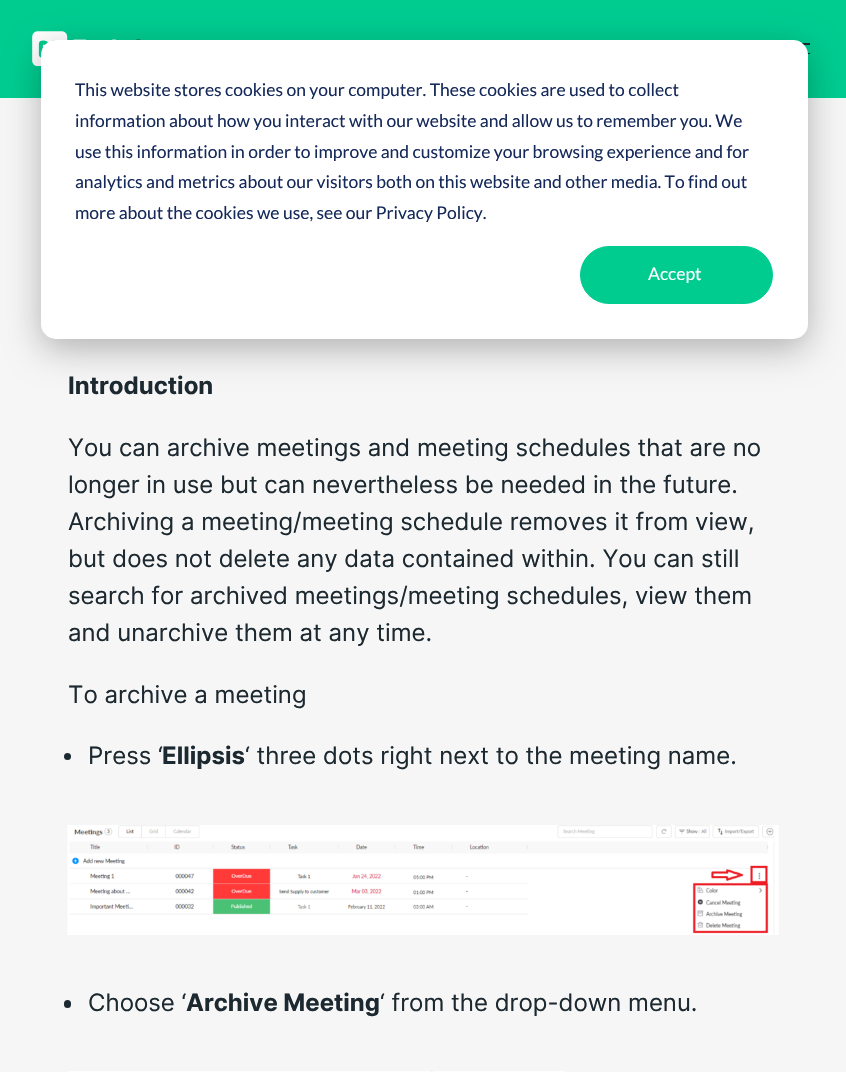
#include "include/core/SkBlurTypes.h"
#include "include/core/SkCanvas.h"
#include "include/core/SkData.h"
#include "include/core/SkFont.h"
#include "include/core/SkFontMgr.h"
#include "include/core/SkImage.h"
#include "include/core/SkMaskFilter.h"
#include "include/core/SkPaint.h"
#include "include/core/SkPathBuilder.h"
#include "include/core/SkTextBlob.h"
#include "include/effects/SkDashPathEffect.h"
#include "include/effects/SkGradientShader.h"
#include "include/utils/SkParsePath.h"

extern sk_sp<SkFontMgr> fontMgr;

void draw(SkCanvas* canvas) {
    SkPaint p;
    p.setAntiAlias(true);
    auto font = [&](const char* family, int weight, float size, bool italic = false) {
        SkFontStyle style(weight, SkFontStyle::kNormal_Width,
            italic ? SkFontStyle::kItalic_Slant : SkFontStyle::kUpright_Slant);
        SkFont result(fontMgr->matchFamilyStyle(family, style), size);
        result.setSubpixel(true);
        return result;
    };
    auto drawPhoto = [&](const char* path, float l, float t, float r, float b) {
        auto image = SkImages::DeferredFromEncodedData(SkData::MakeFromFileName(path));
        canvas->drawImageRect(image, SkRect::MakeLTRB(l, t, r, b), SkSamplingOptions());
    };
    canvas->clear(0xFFF6F6F6);
    p.setColor(0xFF00CC90);
    canvas->drawRect(SkRect::MakeLTRB(0, 0, 846, 98), p);
    drawPhoto("media/1.png", 32, 31, 141, 66);
    p.setColor(0xFF1C2930);
    canvas->drawRect(SkRect::MakeLTRB(802, 43, 810, 45), p);
    canvas->drawRect(SkRect::MakeLTRB(807, 53, 810, 54), p);
    p.setColor(0x47000000);
    p.setMaskFilter(SkMaskFilter::MakeBlur(kNormal_SkBlurStyle, 17.5f));
    canvas->drawRoundRect(SkRect::MakeLTRB(41, 50, 808, 349), 15, 15, p);
    p.setMaskFilter(nullptr);
    p.setColor(0xFFFFFFFF);
    canvas->drawRoundRect(SkRect::MakeLTRB(41, 40, 808, 339), 15, 15, p);
    auto font1 = font("Lato", 400, 17.5f);
    p.setColor(0xFF15295A);
    {
        const struct { const char* s; float x, y; } items[] = {
            {"This website stores cookies on your computer. These cookies are used to collect", 75, 96},
            {"information about how you interact with our website and allow us to remember you. We", 75, 127},
            {"use this information in order to improve and customize your browsing experience and for", 75, 158},
            {"analytics and metrics about our visitors both on this website and other media. To find out", 75, 188},
            {"more about the cookies we use, see our Privacy Policy.", 75, 219},
        };
        for (auto [s, x, y] : items) {
            canvas->drawString(s, x, y, font1, p);
        }
    }
    p.setColor(0xFF00CC90);
    canvas->drawRoundRect(SkRect::MakeLTRB(580.5f, 246.5f, 772.5f, 303.5f), 28.5f, 28.5f, p);
    p.setStyle(SkPaint::kStroke_Style);
    p.setStrokeWidth(1);
    canvas->drawRoundRect(SkRect::MakeLTRB(580.5f, 246.5f, 772.5f, 303.5f), 28.5f, 28.5f, p);
    p.setStyle(SkPaint::kFill_Style);
    p.setColor(0xFFFFFFFF);
    canvas->drawString("Accept", 648, 280, font1, p);
    auto font2 = font("Inter", 700, 24);
    p.setColor(0xFF1C2930);
    canvas->drawString("Introduction", 68, 394, font2, p);
    auto font3 = font("Inter", 400, 24);
    {
        const struct { const char* s; float x, y; } items[] = {
            {"You can archive meetings and meeting schedules that are no", 68, 456},
            {"longer in use but can nevertheless be needed in the future.", 68, 493},
            {"Archiving a meeting/meeting schedule removes it from view,", 68, 530},
            {"but does not delete any data contained within. You can still", 68, 567},
            {"search for archived meetings/meeting schedules, view them", 68, 604},
            {"and unarchive them at any time.", 68, 641},
            {"To archive a meeting", 68, 703},
        };
        for (auto [s, x, y] : items) {
            canvas->drawString(s, x, y, font3, p);
        }
    }
    canvas->drawCircle(67.5f, 756.5f, 3.5f, p);
    canvas->drawString("Press ‘", 88, 764, font3, p);
    canvas->drawString("Ellipsis", 162, 764, font2, p);
    canvas->drawString("‘ three dots right next to the meeting name.", 245, 764, font3, p);
    drawPhoto("media/2.png", 67, 825, 779, 935);
    canvas->drawRoundRect(SkRect::MakeLTRB(64, 1000, 71, 1008), 3.5f, 3.5f, p);
    canvas->drawString("Choose ‘", 88, 1011, font3, p);
    canvas->drawString("Archive Meeting", 186, 1011, font2, p);
    canvas->drawString("‘ from the drop-down menu.", 380, 1011, font3, p);
    drawPhoto("media/3.png", 68, 1071, 565, 1072);
}
